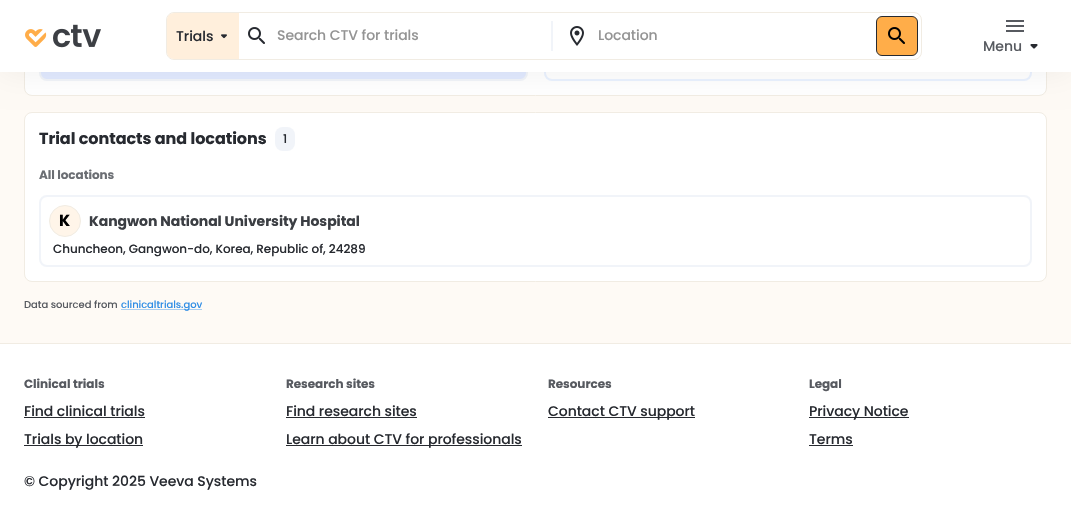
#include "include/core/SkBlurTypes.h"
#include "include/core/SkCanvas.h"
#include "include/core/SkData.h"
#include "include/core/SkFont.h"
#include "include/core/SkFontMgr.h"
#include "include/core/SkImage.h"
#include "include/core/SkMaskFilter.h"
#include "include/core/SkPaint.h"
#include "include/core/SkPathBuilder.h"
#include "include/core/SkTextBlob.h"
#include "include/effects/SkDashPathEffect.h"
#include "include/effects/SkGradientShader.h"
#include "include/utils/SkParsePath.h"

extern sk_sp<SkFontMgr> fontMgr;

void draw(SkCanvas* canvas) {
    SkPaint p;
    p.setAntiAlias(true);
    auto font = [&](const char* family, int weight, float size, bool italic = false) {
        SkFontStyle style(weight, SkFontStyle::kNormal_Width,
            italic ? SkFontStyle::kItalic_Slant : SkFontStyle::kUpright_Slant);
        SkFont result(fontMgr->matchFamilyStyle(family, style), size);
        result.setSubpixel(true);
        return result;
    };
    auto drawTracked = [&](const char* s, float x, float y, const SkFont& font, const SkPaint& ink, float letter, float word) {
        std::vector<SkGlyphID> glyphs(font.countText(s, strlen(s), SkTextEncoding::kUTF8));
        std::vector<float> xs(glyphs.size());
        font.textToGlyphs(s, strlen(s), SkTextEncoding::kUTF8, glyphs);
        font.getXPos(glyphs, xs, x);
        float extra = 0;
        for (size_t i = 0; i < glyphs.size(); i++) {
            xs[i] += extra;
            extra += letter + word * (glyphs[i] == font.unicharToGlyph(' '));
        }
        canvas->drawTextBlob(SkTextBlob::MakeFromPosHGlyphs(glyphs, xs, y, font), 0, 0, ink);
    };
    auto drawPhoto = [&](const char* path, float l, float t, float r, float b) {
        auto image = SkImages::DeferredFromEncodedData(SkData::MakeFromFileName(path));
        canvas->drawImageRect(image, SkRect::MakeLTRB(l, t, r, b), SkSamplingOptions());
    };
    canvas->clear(0xFFFEFAF5);
    p.setColor(0xFFFFFFFF);
    canvas->drawRoundRect(SkRect::MakeLTRB(24.5f, -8.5f, 1046.5f, 95.5f), 7.5f, 7.5f, p);
    p.setStyle(SkPaint::kStroke_Style);
    p.setStrokeWidth(1);
    p.setColor(0xFFF1ECE3);
    canvas->drawRoundRect(SkRect::MakeLTRB(24.5f, -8.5f, 1046.5f, 95.5f), 7.5f, 7.5f, p);
    p.setStyle(SkPaint::kFill_Style);
    p.setColor(0xFFE1E9FF);
    canvas->drawRoundRect(SkRect::MakeLTRB(40, -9, 527, 80), 7, 7, p);
    p.setStyle(SkPaint::kStroke_Style);
    p.setStrokeWidth(2);
    p.setColor(0xFFF1F4F9);
    canvas->drawRoundRect(SkRect::MakeLTRB(40, -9, 527, 80), 7, 7, p);
    p.setColor(0xFFEAF2FF);
    canvas->drawRoundRect(SkRect::MakeLTRB(545, -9, 1031, 80), 7, 7, p);
    p.setStyle(SkPaint::kFill_Style);
    p.setColor(0xFFFFFFFF);
    canvas->drawRoundRect(SkRect::MakeLTRB(24.5f, 112.5f, 1046.5f, 281.5f), 7.5f, 7.5f, p);
    p.setStyle(SkPaint::kStroke_Style);
    p.setStrokeWidth(1);
    p.setColor(0xFFF1ECE3);
    canvas->drawRoundRect(SkRect::MakeLTRB(24.5f, 112.5f, 1046.5f, 281.5f), 7.5f, 7.5f, p);
    p.setStyle(SkPaint::kFill_Style);
    p.setColor(0x0F000000);
    p.setMaskFilter(SkMaskFilter::MakeBlur(kNormal_SkBlurStyle, 16));
    canvas->drawRect(SkRect::MakeLTRB(0, 0, 1071, 72), p);
    p.setMaskFilter(nullptr);
    p.setColor(0xFFFFFFFF);
    canvas->drawRect(SkRect::MakeLTRB(0, 0, 1071, 72), p);
    drawPhoto("media/1.png", 25, 24, 101, 48);
    p.setStyle(SkPaint::kStroke_Style);
    p.setColor(0xFFF1ECE3);
    canvas->drawRoundRect(SkRect::MakeLTRB(166.5f, 12.5f, 921.5f, 59.5f), 7.5f, 7.5f, p);
    p.setStyle(SkPaint::kFill_Style);
    p.setColor(0xFFFFEFDC);
    canvas->drawPath(SkPathBuilder().moveTo(174, 13).lineTo(239, 13).lineTo(239, 59).lineTo(174, 59).cubicTo(170, 59, 167, 56, 167, 52).lineTo(167, 20).cubicTo(167, 16, 170, 13, 174, 13).close().detach(), p);
    auto font1 = font("Poppins", 500, 14);
    p.setColor(0xFF272A30);
    drawTracked("Trials", 176, 41, font1, p, -0.05f, 0);
    drawPhoto("media/2.png", 221, 34, 227, 39);
    drawPhoto("media/3.png", 248, 27, 265, 44);
    p.setColor(0xFF949494);
    drawTracked("Search CTV for trials", 277, 40, font1, p, -0.05f, 0);
    p.setColor(0xFFF1F4F9);
    canvas->drawRect(SkRect::MakeLTRB(551, 21, 553, 51), p);
    drawPhoto("media/4.png", 570, 26, 584, 46);
    p.setColor(0xFF949494);
    drawTracked("Location", 598, 40, font1, p, -0.05f, 0);
    p.setColor(0xFFFFAD49);
    canvas->drawRoundRect(SkRect::MakeLTRB(876.5f, 16.5f, 917.5f, 55.5f), 5.5f, 5.5f, p);
    p.setStyle(SkPaint::kStroke_Style);
    p.setColor(0xFF272A30);
    canvas->drawRoundRect(SkRect::MakeLTRB(876.5f, 16.5f, 917.5f, 55.5f), 5.5f, 5.5f, p);
    drawPhoto("media/5.png", 888, 27, 905, 44);
    drawPhoto("media/6.png", 1006, 20, 1024, 32);
    p.setStyle(SkPaint::kFill_Style);
    p.setColor(0xFF575A60);
    drawTracked("Menu", 983, 51, font1, p, -0.05f, 0);
    drawPhoto("media/7.png", 1030, 44, 1038, 49);
    auto font2 = font("Poppins", 700, 16);
    p.setColor(0xFF272A30);
    drawTracked("Trial contacts and locations", 39, 144, font2, p, -0.05f, 0);
    p.setColor(0xFFF1F4F9);
    canvas->drawRoundRect(SkRect::MakeLTRB(275, 127, 295, 151), 8, 8, p);
    auto font3 = font("Poppins", 500, 12);
    p.setColor(0xFF272A30);
    drawTracked("1", 283, 143, font3, p, -0.05f, 0);
    auto font4 = font("Poppins", 700, 12);
    p.setColor(0xFF6B6E73);
    drawTracked("All locations", 39, 179, font4, p, -0.05f, 0);
    p.setStyle(SkPaint::kStroke_Style);
    p.setStrokeWidth(2);
    p.setColor(0xFFF1F4F9);
    canvas->drawRoundRect(SkRect::MakeLTRB(40, 196, 1031, 266), 7, 7, p);
    p.setStyle(SkPaint::kFill_Style);
    p.setColor(0xFFFFF5E9);
    canvas->drawCircle(65, 221, 15.5f, p);
    p.setStyle(SkPaint::kStroke_Style);
    p.setStrokeWidth(1);
    p.setColor(0xFFF1ECE3);
    canvas->drawCircle(65, 221, 15.5f, p);
    p.setStyle(SkPaint::kFill_Style);
    p.setColor(0xFF000000);
    drawTracked("K", 59, 226, font2, p, -0.05f, 0);
    auto font5 = font("Poppins", 700, 14);
    p.setColor(0xFF3B3E43);
    drawTracked("Kangwon National University Hospital", 89, 226, font5, p, -0.05f, 0);
    p.setColor(0xFF272A30);
    drawTracked("Chuncheon, Gangwon-do, Korea, Republic of, 24289", 53, 253, font3, p, -0.05f, 0);
    auto font6 = font("Poppins", 500, 10);
    p.setColor(0xFF575A60);
    drawTracked("Data sourced from", 24, 308, font6, p, -0.05f, 0);
    p.setColor(0xFFABCEEF);
    canvas->drawRect(SkRect::MakeLTRB(121, 309, 202, 310), p);
    p.setColor(0xFF2F8DE5);
    drawTracked("clinicaltrials.gov", 121, 308, font6, p, -0.05f, 0);
    p.setColor(0xFFFFFFFF);
    canvas->drawRect(SkRect::MakeLTRB(0, 344, 1071, 531), p);
    p.setColor(0xFFF1ECE3);
    canvas->drawRect(SkRect::MakeLTRB(0, 343, 1071, 344), p);
    p.setColor(0xFF575A60);
    drawTracked("Clinical trials", 24, 388, font4, p, -0.05f, 0);
    p.setColor(0xFF272A30);
    drawTracked("Find clinical trials", 24, 416, font1, p, -0.05f, 0);
    canvas->drawRect(SkRect::MakeLTRB(24, 417, 145, 418), p);
    canvas->drawRect(SkRect::MakeLTRB(24, 445, 143, 446), p);
    drawTracked("Trials by location", 24, 444, font1, p, -0.05f, 0);
    p.setColor(0xFF575A60);
    drawTracked("Research sites", 286, 388, font4, p, -0.05f, 0);
    p.setColor(0xFF272A30);
    drawTracked("Find research sites", 286, 416, font1, p, -0.05f, 0);
    canvas->drawRect(SkRect::MakeLTRB(286, 417, 417, 418), p);
    canvas->drawRect(SkRect::MakeLTRB(286, 445, 522, 446), p);
    drawTracked("Learn about CTV for professionals", 286, 444, font1, p, -0.05f, 0);
    p.setColor(0xFF575A60);
    drawTracked("Resources", 548, 388, font4, p, -0.05f, 0);
    p.setColor(0xFF272A30);
    canvas->drawRect(SkRect::MakeLTRB(548, 417, 695, 418), p);
    drawTracked("Contact CTV support", 548, 416, font1, p, -0.05f, 0);
    p.setColor(0xFF575A60);
    drawTracked("Legal", 809, 388, font4, p, -0.05f, 0);
    p.setColor(0xFF272A30);
    canvas->drawRect(SkRect::MakeLTRB(809, 417, 909, 418), p);
    drawTracked("Privacy Notice", 809, 416, font1, p, -0.05f, 0);
    drawTracked("Terms", 809, 444, font1, p, -0.05f, 0);
    canvas->drawRect(SkRect::MakeLTRB(809, 445, 853, 446), p);
    drawTracked("© Copyright 2025 Veeva Systems", 24, 486, font1, p, -0.05f, 0);
}
